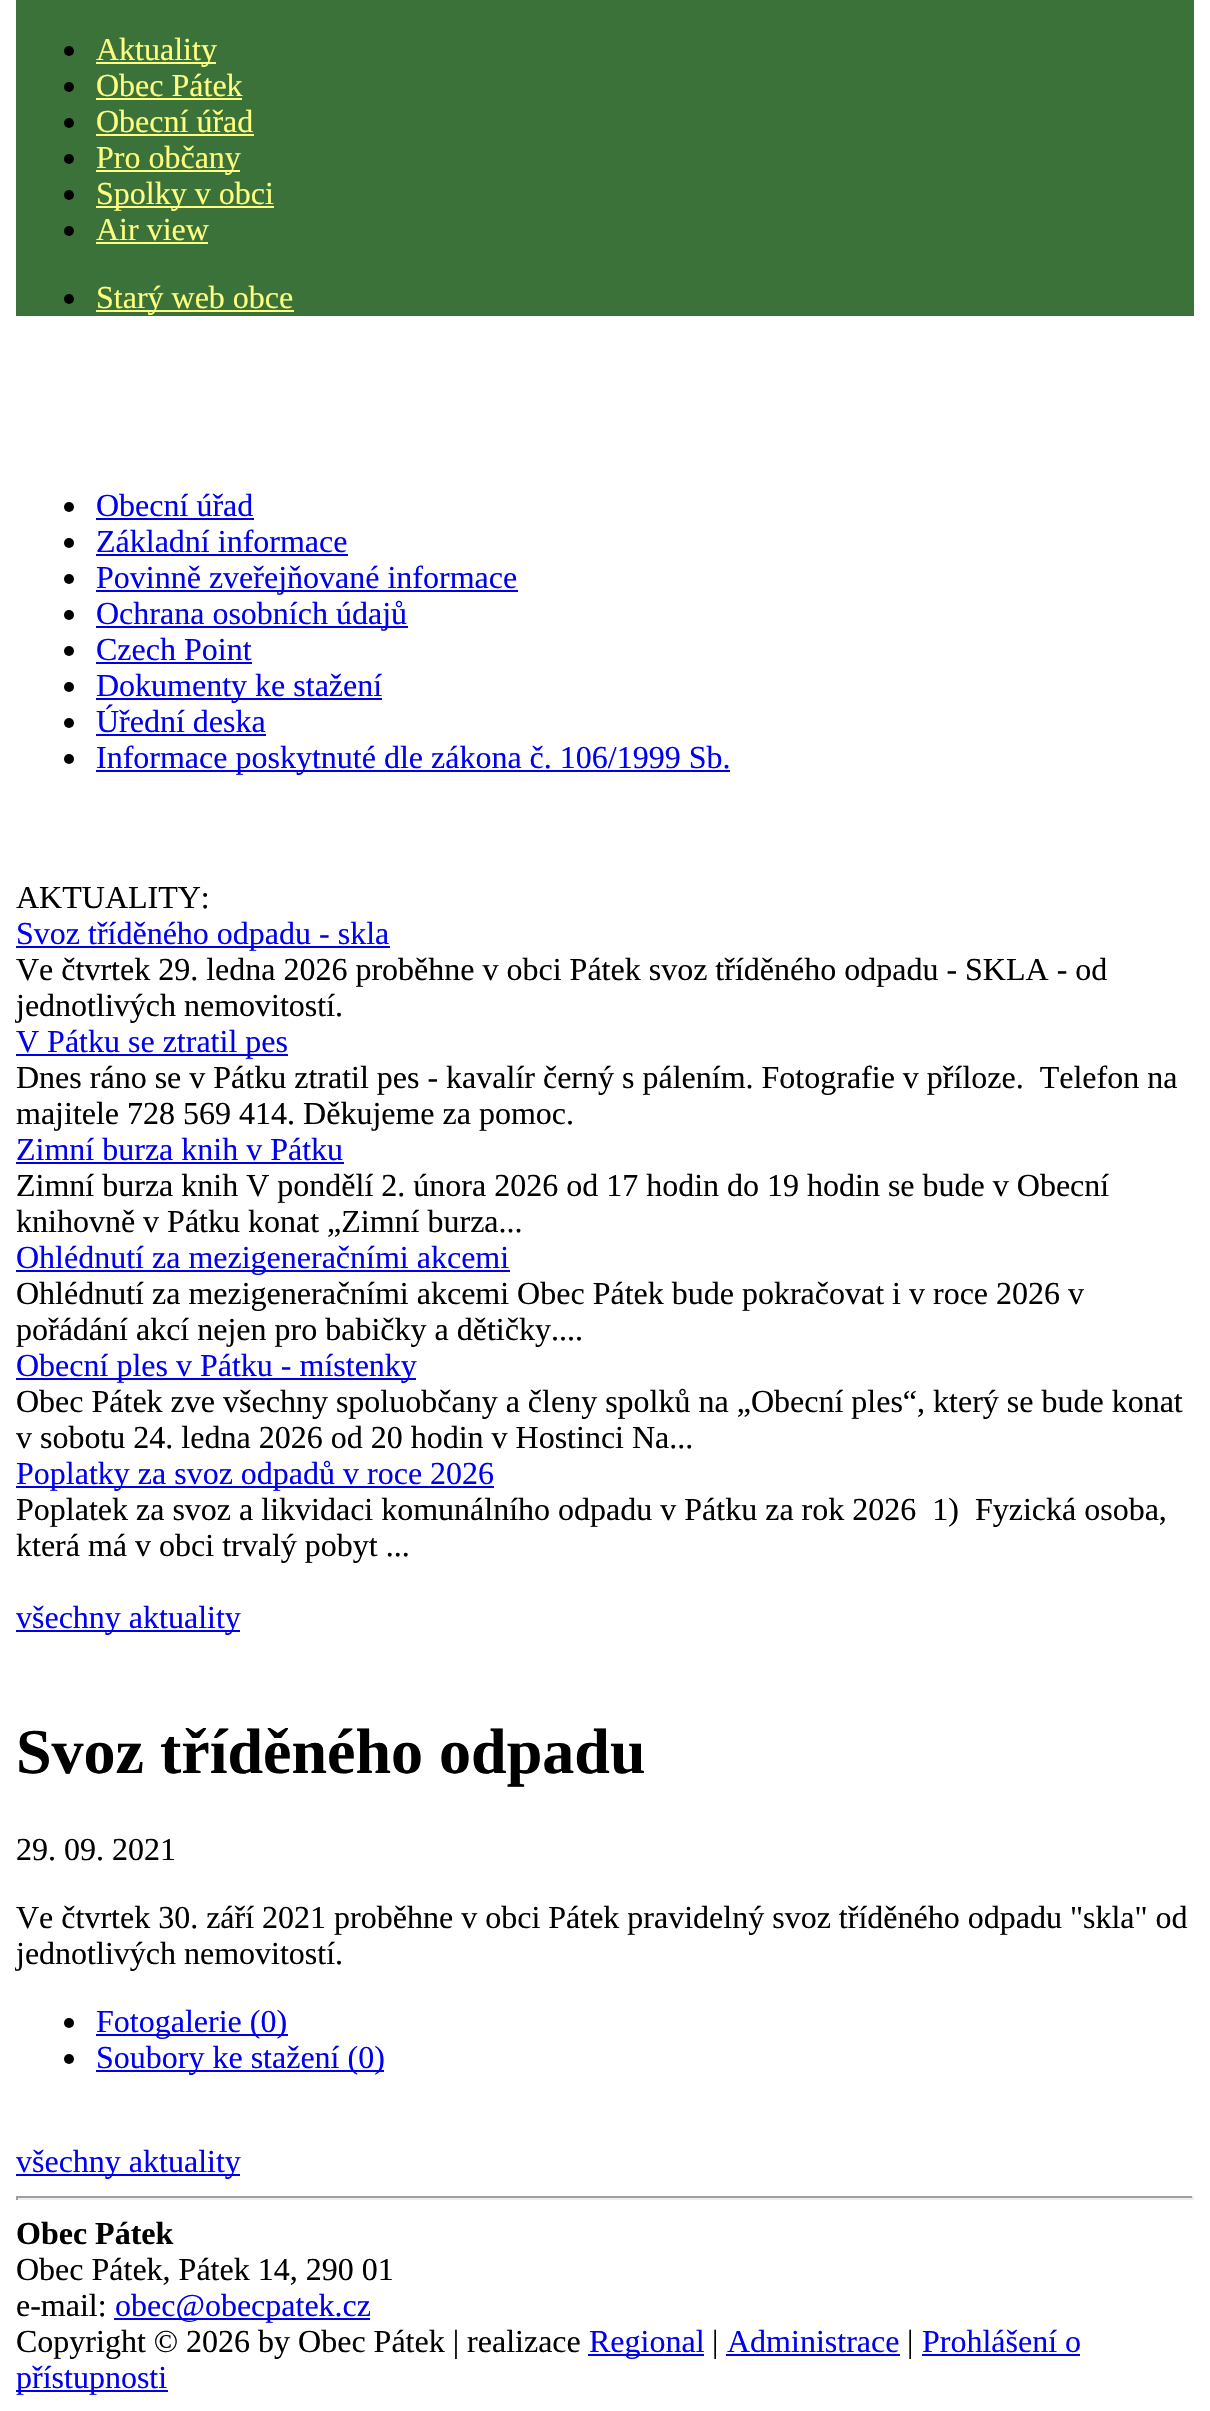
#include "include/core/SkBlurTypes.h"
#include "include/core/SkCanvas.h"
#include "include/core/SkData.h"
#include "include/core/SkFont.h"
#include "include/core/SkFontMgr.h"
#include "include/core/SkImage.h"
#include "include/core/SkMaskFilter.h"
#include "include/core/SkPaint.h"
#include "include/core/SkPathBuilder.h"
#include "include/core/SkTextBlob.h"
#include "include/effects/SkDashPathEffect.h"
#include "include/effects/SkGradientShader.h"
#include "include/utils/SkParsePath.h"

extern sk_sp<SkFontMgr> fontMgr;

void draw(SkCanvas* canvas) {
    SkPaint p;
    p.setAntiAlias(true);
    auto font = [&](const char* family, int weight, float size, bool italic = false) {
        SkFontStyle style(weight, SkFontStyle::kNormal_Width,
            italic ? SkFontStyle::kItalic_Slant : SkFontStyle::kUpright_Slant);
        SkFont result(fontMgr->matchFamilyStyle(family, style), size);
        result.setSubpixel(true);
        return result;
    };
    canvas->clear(0xFFFFFFFF);
    p.setColor(0xFF3A723A);
    canvas->drawRect(SkRect::MakeLTRB(16, 0, 1194, 316), p);
    p.setColor(0xFF000000);
    canvas->drawCircle(69, 51, 5, p);
    p.setColor(0xFFFFFF80);
    canvas->drawRect(SkRect::MakeLTRB(96, 62, 216, 64), p);
    auto font1 = font("Liberation Serif", 400, 32);
    canvas->drawString("Aktuality", 96, 60, font1, p);
    p.setColor(0xFF000000);
    canvas->drawCircle(69, 87, 5, p);
    p.setColor(0xFFFFFF80);
    canvas->drawString("Obec Pátek", 96, 96, font1, p);
    canvas->drawRect(SkRect::MakeLTRB(96, 98, 242, 100), p);
    p.setColor(0xFF000000);
    canvas->drawCircle(69, 123, 5, p);
    p.setColor(0xFFFFFF80);
    canvas->drawString("Obecní úřad", 96, 132, font1, p);
    canvas->drawRect(SkRect::MakeLTRB(96, 134, 254, 136), p);
    p.setColor(0xFF000000);
    canvas->drawCircle(69, 159, 5, p);
    p.setColor(0xFFFFFF80);
    canvas->drawRect(SkRect::MakeLTRB(96, 170, 240, 172), p);
    canvas->drawString("Pro občany", 96, 168, font1, p);
    p.setColor(0xFF000000);
    canvas->drawCircle(69, 195, 5, p);
    p.setColor(0xFFFFFF80);
    canvas->drawRect(SkRect::MakeLTRB(96, 206, 274, 208), p);
    canvas->drawString("Spolky v obci", 96, 204, font1, p);
    p.setColor(0xFF000000);
    canvas->drawCircle(69, 231, 5, p);
    p.setColor(0xFFFFFF80);
    canvas->drawString("Air view", 96, 240, font1, p);
    canvas->drawRect(SkRect::MakeLTRB(96, 242, 208, 244), p);
    p.setColor(0xFF000000);
    canvas->drawCircle(69, 299, 5, p);
    p.setColor(0xFFFFFF80);
    canvas->drawRect(SkRect::MakeLTRB(96, 310, 294, 312), p);
    canvas->drawString("Starý web obce", 96, 308, font1, p);
    p.setColor(0xFF000000);
    canvas->drawCircle(69, 507, 5, p);
    p.setColor(0xFF0000EE);
    canvas->drawString("Obecní úřad", 96, 516, font1, p);
    canvas->drawRect(SkRect::MakeLTRB(96, 518, 254, 520), p);
    p.setColor(0xFF000000);
    canvas->drawCircle(69, 543, 5, p);
    p.setColor(0xFF0000EE);
    canvas->drawString("Základní informace", 96, 552, font1, p);
    canvas->drawRect(SkRect::MakeLTRB(96, 554, 348, 556), p);
    p.setColor(0xFF000000);
    canvas->drawCircle(69, 579, 5, p);
    p.setColor(0xFF0000EE);
    canvas->drawRect(SkRect::MakeLTRB(96, 590, 518, 592), p);
    canvas->drawString("Povinně zveřejňované informace", 96, 588, font1, p);
    p.setColor(0xFF000000);
    canvas->drawCircle(69, 615, 5, p);
    p.setColor(0xFF0000EE);
    canvas->drawRect(SkRect::MakeLTRB(96, 626, 408, 628), p);
    canvas->drawString("Ochrana osobních údajů", 96, 624, font1, p);
    p.setColor(0xFF000000);
    canvas->drawCircle(69, 651, 5, p);
    p.setColor(0xFF0000EE);
    canvas->drawString("Czech Point", 96, 660, font1, p);
    canvas->drawRect(SkRect::MakeLTRB(96, 662, 252, 664), p);
    p.setColor(0xFF000000);
    canvas->drawCircle(69, 687, 5, p);
    p.setColor(0xFF0000EE);
    canvas->drawRect(SkRect::MakeLTRB(96, 698, 382, 700), p);
    canvas->drawString("Dokumenty ke stažení", 96, 696, font1, p);
    p.setColor(0xFF000000);
    canvas->drawCircle(69, 723, 5, p);
    p.setColor(0xFF0000EE);
    canvas->drawString("Úřední deska", 96, 732, font1, p);
    canvas->drawRect(SkRect::MakeLTRB(96, 734, 266, 736), p);
    p.setColor(0xFF000000);
    canvas->drawCircle(69, 759, 5, p);
    p.setColor(0xFF0000EE);
    canvas->drawRect(SkRect::MakeLTRB(96, 770, 730, 772), p);
    canvas->drawString("Informace poskytnuté dle zákona č. 106/1999 Sb.", 96, 768, font1, p);
    p.setColor(0xFF000000);
    canvas->drawString("AKTUALITY:", 16, 908, font1, p);
    p.setColor(0xFF0000EE);
    canvas->drawRect(SkRect::MakeLTRB(16, 946, 390, 948), p);
    canvas->drawString("Svoz tříděného odpadu - skla", 16, 944, font1, p);
    p.setColor(0xFF000000);
    canvas->drawString("Ve čtvrtek 29. ledna 2026 proběhne v obci Pátek svoz tříděného odpadu - SKLA - od", 16, 980, font1, p);
    canvas->drawString("jednotlivých nemovitostí.", 16, 1016, font1, p);
    p.setColor(0xFF0000EE);
    canvas->drawRect(SkRect::MakeLTRB(16, 1054, 288, 1056), p);
    canvas->drawString("V Pátku se ztratil pes", 16, 1052, font1, p);
    p.setColor(0xFF000000);
    canvas->drawString("Dnes ráno se v Pátku ztratil pes - kavalír černý s pálením. Fotografie v příloze.  Telefon na", 16, 1088, font1, p);
    canvas->drawString("majitele 728 569 414. Děkujeme za pomoc.", 16, 1124, font1, p);
    p.setColor(0xFF0000EE);
    canvas->drawString("Zimní burza knih v Pátku", 16, 1160, font1, p);
    canvas->drawRect(SkRect::MakeLTRB(16, 1162, 344, 1164), p);
    p.setColor(0xFF000000);
    canvas->drawString("Zimní burza knih V pondělí 2. února 2026 od 17 hodin do 19 hodin se bude v Obecní", 16, 1196, font1, p);
    canvas->drawString("knihovně v Pátku konat „Zimní burza...", 16, 1232, font1, p);
    p.setColor(0xFF0000EE);
    canvas->drawRect(SkRect::MakeLTRB(16, 1270, 510, 1272), p);
    canvas->drawString("Ohlédnutí za mezigeneračními akcemi", 16, 1268, font1, p);
    p.setColor(0xFF000000);
    canvas->drawString("Ohlédnutí za mezigeneračními akcemi Obec Pátek bude pokračovat i v roce 2026 v", 16, 1304, font1, p);
    canvas->drawString("pořádání akcí nejen pro babičky a dětičky....", 16, 1340, font1, p);
    p.setColor(0xFF0000EE);
    canvas->drawRect(SkRect::MakeLTRB(16, 1378, 416, 1380), p);
    canvas->drawString("Obecní ples v Pátku - místenky", 16, 1376, font1, p);
    p.setColor(0xFF000000);
    canvas->drawString("Obec Pátek zve všechny spoluobčany a členy spolků na „Obecní ples“, který se bude konat", 16, 1412, font1, p);
    canvas->drawString("v sobotu 24. ledna 2026 od 20 hodin v Hostinci Na...", 16, 1448, font1, p);
    p.setColor(0xFF0000EE);
    canvas->drawRect(SkRect::MakeLTRB(16, 1486, 494, 1488), p);
    canvas->drawString("Poplatky za svoz odpadů v roce 2026", 16, 1484, font1, p);
    p.setColor(0xFF000000);
    canvas->drawString("Poplatek za svoz a likvidaci komunálního odpadu v Pátku za rok 2026  1)  Fyzická osoba,", 16, 1520, font1, p);
    canvas->drawString("která má v obci trvalý pobyt ...", 16, 1556, font1, p);
    p.setColor(0xFF0000EE);
    canvas->drawRect(SkRect::MakeLTRB(16, 1630, 240, 1632), p);
    canvas->drawString("všechny aktuality", 16, 1628, font1, p);
    auto font2 = font("Liberation Serif", 700, 64);
    p.setColor(0xFF000000);
    canvas->drawString("Svoz tříděného odpadu", 16, 1773, font2, p);
    {
        const struct { const char* s; float x, y; } items[] = {
            {"29. 09. 2021", 16, 1860},
            {"Ve čtvrtek 30. září 2021 proběhne v obci Pátek pravidelný svoz tříděného odpadu \"skla\" od", 16, 1928},
            {"jednotlivých nemovitostí.", 16, 1964},
        };
        for (auto [s, x, y] : items) {
            canvas->drawString(s, x, y, font1, p);
        }
    }
    canvas->drawCircle(69, 2023, 5, p);
    p.setColor(0xFF0000EE);
    canvas->drawRect(SkRect::MakeLTRB(96, 2034, 288, 2036), p);
    canvas->drawString("Fotogalerie (0)", 96, 2032, font1, p);
    p.setColor(0xFF000000);
    canvas->drawCircle(69, 2059, 5, p);
    p.setColor(0xFF0000EE);
    canvas->drawRect(SkRect::MakeLTRB(96, 2070, 384, 2072), p);
    canvas->drawString("Soubory ke stažení (0)", 96, 2068, font1, p);
    canvas->drawRect(SkRect::MakeLTRB(16, 2174, 240, 2176), p);
    canvas->drawString("všechny aktuality", 16, 2172, font1, p);
    {
        const struct { float l, t, r, b; SkColor color; } items[] = {
            {16, 2196, 1194, 2198, 0xFF9F9F9F},
            {1192, 2196, 1194, 2200, 0xFFEEEEEE},
            {16, 2198, 1194, 2200, 0xFFEEEEEE},
            {16, 2196, 18, 2200, 0xFF9F9F9F},
        };
        for (auto [l, t, r, b, color] : items) {
            p.setColor(color);
            canvas->drawRect(SkRect::MakeLTRB(l, t, r, b), p);
        }
    }
    auto font3 = font("Liberation Serif", 700, 32);
    p.setColor(0xFF000000);
    canvas->drawString("Obec Pátek", 16, 2244, font3, p);
    canvas->drawString("Obec Pátek, Pátek 14, 290 01", 16, 2280, font1, p);
    canvas->drawString("e-mail:", 16, 2316, font1, p);
    p.setColor(0xFF0000EE);
    canvas->drawRect(SkRect::MakeLTRB(114, 2318, 370, 2320), p);
    canvas->drawString("obec@obecpatek.cz", 115, 2316, font1, p);
    p.setColor(0xFF000000);
    canvas->drawString("Copyright © 2026 by Obec Pátek | realizace", 16, 2352, font1, p);
    p.setColor(0xFF0000EE);
    canvas->drawRect(SkRect::MakeLTRB(588, 2354, 704, 2356), p);
    canvas->drawString("Regional", 589, 2352, font1, p);
    p.setColor(0xFF000000);
    canvas->drawString("|", 712, 2352, font1, p);
    p.setColor(0xFF0000EE);
    canvas->drawString("Administrace", 727, 2352, font1, p);
    canvas->drawRect(SkRect::MakeLTRB(726, 2354, 900, 2356), p);
    p.setColor(0xFF000000);
    canvas->drawString("|", 907, 2352, font1, p);
    p.setColor(0xFF0000EE);
    canvas->drawString("Prohlášení o", 922, 2352, font1, p);
    canvas->drawRect(SkRect::MakeLTRB(922, 2354, 1080, 2356), p);
    canvas->drawRect(SkRect::MakeLTRB(16, 2390, 168, 2392), p);
    canvas->drawString("přístupnosti", 16, 2388, font1, p);
}
